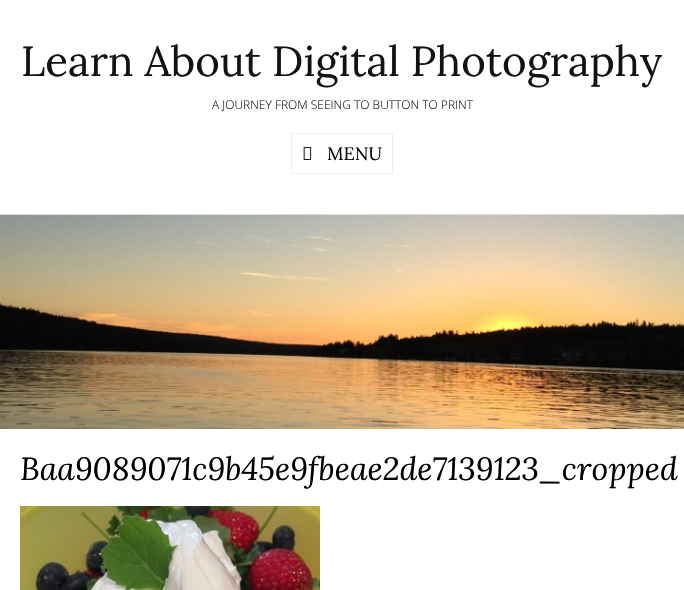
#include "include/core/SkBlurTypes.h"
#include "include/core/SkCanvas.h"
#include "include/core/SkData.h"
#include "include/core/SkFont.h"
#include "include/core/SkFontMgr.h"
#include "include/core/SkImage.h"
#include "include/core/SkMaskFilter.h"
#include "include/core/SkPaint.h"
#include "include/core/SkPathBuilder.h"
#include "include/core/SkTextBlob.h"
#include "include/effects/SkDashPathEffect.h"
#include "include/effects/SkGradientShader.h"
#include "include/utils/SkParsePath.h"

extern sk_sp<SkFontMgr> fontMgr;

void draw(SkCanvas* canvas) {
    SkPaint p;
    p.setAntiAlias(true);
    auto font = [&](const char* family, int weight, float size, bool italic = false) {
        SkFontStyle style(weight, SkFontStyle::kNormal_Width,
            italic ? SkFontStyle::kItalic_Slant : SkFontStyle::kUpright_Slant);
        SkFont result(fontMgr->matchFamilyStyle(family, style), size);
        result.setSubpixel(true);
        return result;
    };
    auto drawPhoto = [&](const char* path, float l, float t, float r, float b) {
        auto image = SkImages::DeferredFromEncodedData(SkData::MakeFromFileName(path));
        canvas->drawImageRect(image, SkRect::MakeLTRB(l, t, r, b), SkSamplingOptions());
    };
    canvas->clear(0xFFFFFFFF);
    p.setColor(0xFFDDDDDD);
    canvas->drawRect(SkRect::MakeLTRB(0, 214, 684, 215), p);
    auto font1 = font("Lora", 400, 42);
    p.setColor(0xFF121212);
    canvas->drawString("Learn About Digital Photography", 21, 76, font1, p);
    auto font2 = font("Open Sans", 300, 12);
    canvas->drawString("A JOURNEY FROM SEEING TO BUTTON TO PRINT", 212, 109, font2, p);
    p.setStyle(SkPaint::kStroke_Style);
    p.setStrokeWidth(1);
    p.setColor(0xFFEEEEEE);
    canvas->drawRect(SkRect::MakeLTRB(291.5f, 133.5f, 392.5f, 173.5f), p);
    drawPhoto("media/1.png", 303, 147, 312, 160);
    auto font3 = font("Lora", 400, 18);
    p.setStyle(SkPaint::kFill_Style);
    p.setColor(0xFF000000);
    canvas->drawString("MENU", 327, 160, font3, p);
    drawPhoto("media/2.png", 0, 215, 684, 429);
    auto font4 = font("Lora", 400, 32, true);
    canvas->drawString("Baa9089071c9b45e9fbeae2de7139123_cropped", 20, 480, font4, p);
    drawPhoto("media/3.png", 20, 506, 320, 590);
}
